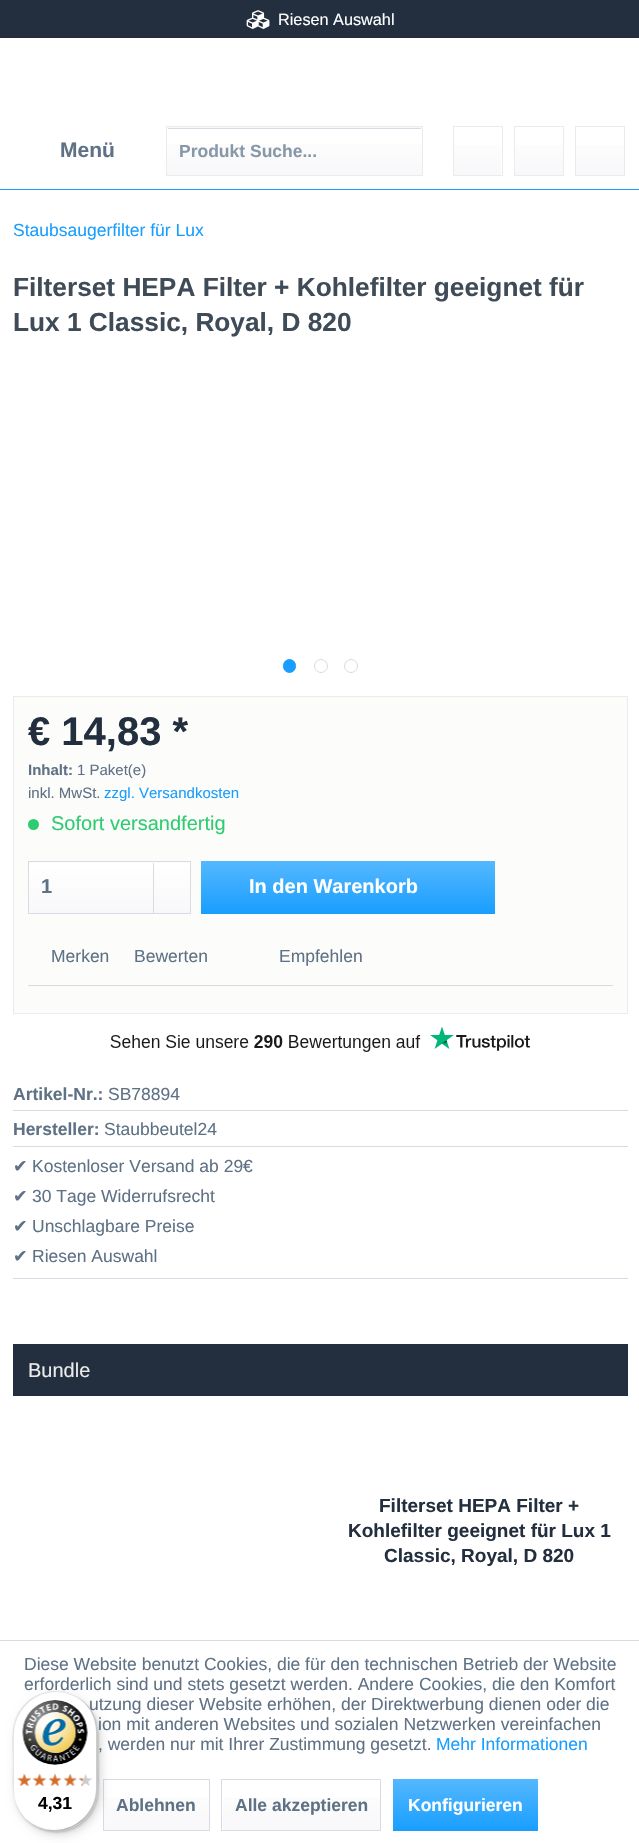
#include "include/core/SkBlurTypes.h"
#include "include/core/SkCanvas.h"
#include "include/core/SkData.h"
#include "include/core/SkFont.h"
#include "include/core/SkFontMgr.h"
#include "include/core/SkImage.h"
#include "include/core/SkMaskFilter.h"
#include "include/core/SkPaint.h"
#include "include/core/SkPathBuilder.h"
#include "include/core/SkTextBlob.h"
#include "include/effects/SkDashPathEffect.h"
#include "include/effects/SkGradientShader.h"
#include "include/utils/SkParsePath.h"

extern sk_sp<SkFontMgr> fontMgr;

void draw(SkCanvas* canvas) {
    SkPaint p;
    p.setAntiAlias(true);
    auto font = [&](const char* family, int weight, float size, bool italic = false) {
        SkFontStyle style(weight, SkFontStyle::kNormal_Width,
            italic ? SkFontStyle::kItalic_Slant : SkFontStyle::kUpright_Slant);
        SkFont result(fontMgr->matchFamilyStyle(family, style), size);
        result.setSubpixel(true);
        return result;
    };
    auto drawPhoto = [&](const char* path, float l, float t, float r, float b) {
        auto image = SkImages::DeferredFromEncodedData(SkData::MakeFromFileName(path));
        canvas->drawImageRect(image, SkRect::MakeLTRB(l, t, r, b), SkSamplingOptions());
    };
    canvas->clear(0xFFFFFFFF);
    p.setColor(0xFF189EFF);
    canvas->drawRect(SkRect::MakeLTRB(0, 189, 639, 190), p);
    p.setColor(0xFF232F3E);
    canvas->drawRect(SkRect::MakeLTRB(0, 0, 639, 38), p);
    drawPhoto("media/1.png", 246, 10, 270, 29);
    auto font1 = font("Liberation Sans", 400, 16.25f);
    p.setColor(0xFFFFFFFF);
    canvas->drawString("Riesen Auswahl", 278, 25, font1, p);
    auto font2 = font("Liberation Sans", 700, 21);
    p.setColor(0xFF5F7285);
    canvas->drawString("Menü", 60, 157, font2, p);
    {
        const SkColor colors[] = {0xFFFFFFFF, 0xFFF8F8FA};
        const float stops[] = {0, 1};
        const SkPoint ends[] = {{294, 80}, {294, 128}};
        p.setShader(SkGradientShader::MakeLinear(ends, colors, stops, 2, SkTileMode::kClamp));
        p.setAlpha(255);
    }
    canvas->drawRect(SkRect::MakeLTRB(166, 127, 423, 128), p);
    {
        const SkColor colors[] = {0xFFFFFFFF, 0xFFF8F8FA};
        const float stops[] = {0, 1};
        const SkPoint ends[] = {{294, 127}, {294, 175}};
        p.setShader(SkGradientShader::MakeLinear(ends, colors, stops, 2, SkTileMode::kClamp));
        p.setAlpha(255);
    }
    canvas->drawRect(SkRect::MakeLTRB(167, 144, 422, 175), p);
    p.setShader(nullptr);
    p.setColor(0xFFDADAE5);
    canvas->drawRect(SkRect::MakeLTRB(168, 128, 421, 129), p);
    p.setStyle(SkPaint::kStroke_Style);
    p.setStrokeWidth(1);
    p.setColor(0xFFEBEBEB);
    canvas->drawRect(SkRect::MakeLTRB(166.5f, 126.5f, 422.5f, 175.5f), p);
    auto font3 = font("Liberation Sans", 700, 17.5f);
    p.setStyle(SkPaint::kFill_Style);
    p.setColor(0xFF8798A9);
    canvas->drawString("Produkt Suche...", 179, 157, font3, p);
    {
        const SkColor colors[] = {0xFFFFFFFF, 0xFFF8F8FA};
        const float stops[] = {0, 1};
        const SkPoint ends[] = {{478, 128}, {478, 175}};
        p.setShader(SkGradientShader::MakeLinear(ends, colors, stops, 2, SkTileMode::kClamp));
        p.setAlpha(255);
    }
    canvas->drawRect(SkRect::MakeLTRB(454, 145, 501, 175), p);
    p.setStyle(SkPaint::kStroke_Style);
    p.setShader(nullptr);
    p.setColor(0xFFEBEBEB);
    canvas->drawRect(SkRect::MakeLTRB(453.5f, 126.5f, 502.5f, 175.5f), p);
    p.setStyle(SkPaint::kFill_Style);
    {
        const SkColor colors[] = {0xFFFFFFFF, 0xFFF8F8FA};
        const float stops[] = {0, 1};
        const SkPoint ends[] = {{539, 128}, {539, 175}};
        p.setShader(SkGradientShader::MakeLinear(ends, colors, stops, 2, SkTileMode::kClamp));
        p.setAlpha(255);
    }
    canvas->drawRect(SkRect::MakeLTRB(515, 145, 563, 175), p);
    p.setStyle(SkPaint::kStroke_Style);
    p.setShader(nullptr);
    p.setColor(0xFFEBEBEB);
    canvas->drawRect(SkRect::MakeLTRB(514.5f, 126.5f, 563.5f, 175.5f), p);
    p.setStyle(SkPaint::kFill_Style);
    {
        const SkColor colors[] = {0xFFFFFFFF, 0xFFF8F8FA};
        const float stops[] = {0, 1};
        const SkPoint ends[] = {{600, 128}, {600, 175}};
        p.setShader(SkGradientShader::MakeLinear(ends, colors, stops, 2, SkTileMode::kClamp));
        p.setAlpha(255);
    }
    canvas->drawRect(SkRect::MakeLTRB(576, 145, 624, 175), p);
    p.setStyle(SkPaint::kStroke_Style);
    p.setShader(nullptr);
    p.setColor(0xFFEBEBEB);
    canvas->drawRect(SkRect::MakeLTRB(575.5f, 126.5f, 624.5f, 175.5f), p);
    auto font4 = font("Liberation Sans", 400, 17.5f);
    p.setStyle(SkPaint::kFill_Style);
    p.setColor(0xFF189EFF);
    canvas->drawString("Staubsaugerfilter für Lux", 13, 236, font4, p);
    auto font5 = font("Liberation Sans", 700, 26.25f);
    p.setColor(0xFF3F4C58);
    canvas->drawString("Filterset HEPA Filter + Kohlefilter geeignet für", 13, 296, font5, p);
    canvas->drawString("Lux 1 Classic, Royal, D 820", 13, 331, font5, p);
    p.setColor(0xFF189EFF);
    canvas->drawRoundRect(SkRect::MakeLTRB(283.5f, 659.5f, 295.5f, 672.5f), 6, 6, p);
    p.setStyle(SkPaint::kStroke_Style);
    canvas->drawRoundRect(SkRect::MakeLTRB(283.5f, 659.5f, 295.5f, 672.5f), 6, 6, p);
    p.setColor(0xFFDADAE5);
    canvas->drawCircle(321, 666, 6.5f, p);
    canvas->drawCircle(351, 666, 6.5f, p);
    p.setStyle(SkPaint::kFill_Style);
    p.setColor(0xFFFCFCFA);
    canvas->drawRect(SkRect::MakeLTRB(13.5f, 696.5f, 627.5f, 1013.5f), p);
    p.setStyle(SkPaint::kStroke_Style);
    p.setColor(0xFFEBEBEB);
    canvas->drawRect(SkRect::MakeLTRB(13.5f, 696.5f, 627.5f, 1013.5f), p);
    auto font6 = font("Liberation Sans", 700, 40);
    p.setStyle(SkPaint::kFill_Style);
    p.setColor(0xFF232F3E);
    canvas->drawString("€ 14,83 *", 28, 745, font6, p);
    auto font7 = font("Liberation Sans", 700, 15);
    p.setColor(0xFF5F7285);
    canvas->drawString("Inhalt:", 28, 775, font7, p);
    auto font8 = font("Liberation Sans", 400, 15);
    canvas->drawString("1 Paket(e)", 77, 775, font8, p);
    canvas->drawString("inkl. MwSt.", 28, 798, font8, p);
    p.setColor(0xFF189EFF);
    canvas->drawString("zzgl. Versandkosten", 104, 798, font8, p);
    p.setColor(0xFF2ECC71);
    canvas->drawCircle(33.5f, 824.5f, 5.5f, p);
    auto font9 = font("Liberation Sans", 400, 20);
    canvas->drawString("Sofort versandfertig", 51, 830, font9, p);
    {
        const SkColor colors[] = {0xFFFFFFFF, 0xFFF8F8FA};
        const float stops[] = {0, 1};
        const SkPoint ends[] = {{109, 863}, {109, 913}};
        p.setShader(SkGradientShader::MakeLinear(ends, colors, stops, 2, SkTileMode::kClamp));
        p.setAlpha(255);
    }
    canvas->drawRect(SkRect::MakeLTRB(29, 863, 190, 913), p);
    p.setStyle(SkPaint::kStroke_Style);
    p.setShader(nullptr);
    p.setColor(0xFFDADAE5);
    canvas->drawRect(SkRect::MakeLTRB(28.5f, 861.5f, 190.5f, 913.5f), p);
    auto font10 = font("Liberation Sans", 700, 20);
    p.setStyle(SkPaint::kFill_Style);
    p.setColor(0xFF5F7285);
    canvas->drawString("1", 41, 893, font10, p);
    p.setColor(0xFFDADAE5);
    canvas->drawRect(SkRect::MakeLTRB(153, 863, 154, 913), p);
    {
        const SkColor colors[] = {0xFF55B8FF, 0xFF189EFF};
        const float stops[] = {0, 1};
        const SkPoint ends[] = {{348, 861}, {348, 914}};
        p.setShader(SkGradientShader::MakeLinear(ends, colors, stops, 2, SkTileMode::kClamp));
        p.setAlpha(255);
    }
    canvas->drawRect(SkRect::MakeLTRB(201, 861, 495, 914), p);
    p.setShader(nullptr);
    p.setColor(0xFFFFFFFF);
    canvas->drawString("In den Warenkorb", 249, 893, font10, p);
    p.setColor(0xFFDADAE5);
    canvas->drawRect(SkRect::MakeLTRB(28, 985, 613, 986), p);
    p.setColor(0xFF5F7285);
    {
        const struct { const char* s; float x, y; } items[] = {
            {"Merken", 51, 962},
            {"Bewerten", 134, 962},
            {"Empfehlen", 279, 962},
        };
        for (auto [s, x, y] : items) {
            canvas->drawString(s, x, y, font4, p);
        }
    }
    drawPhoto("media/2.png", 110, 1026, 530, 1052);
    p.setColor(0xFFDADAE5);
    canvas->drawRect(SkRect::MakeLTRB(13, 1110, 628, 1111), p);
    p.setColor(0xFF5F7285);
    canvas->drawString("Artikel-Nr.:", 13, 1100, font3, p);
    canvas->drawString("SB78894", 108, 1100, font4, p);
    p.setColor(0xFFDADAE5);
    canvas->drawRect(SkRect::MakeLTRB(13, 1146, 628, 1147), p);
    p.setColor(0xFF5F7285);
    canvas->drawString("Hersteller:", 13, 1135, font3, p);
    canvas->drawString("Staubbeutel24", 104, 1135, font4, p);
    p.setColor(0xFFDADAE5);
    canvas->drawRect(SkRect::MakeLTRB(13, 1278, 628, 1279), p);
    auto font11 = font("DejaVu Sans", 400, 17.5f);
    p.setColor(0xFF5F7285);
    canvas->drawString("✔", 13, 1172, font11, p);
    canvas->drawString("Kostenloser Versand ab 29€", 32, 1172, font4, p);
    canvas->drawString("✔", 13, 1202, font11, p);
    canvas->drawString("30 Tage Widerrufsrecht", 32, 1202, font4, p);
    canvas->drawString("✔", 13, 1232, font11, p);
    canvas->drawString("Unschlagbare Preise", 32, 1232, font4, p);
    canvas->drawString("✔", 13, 1262, font11, p);
    canvas->drawString("Riesen Auswahl", 32, 1262, font4, p);
    p.setColor(0xFF232F3E);
    canvas->drawRect(SkRect::MakeLTRB(13, 1344, 628, 1396), p);
    p.setColor(0xFFEBEBEB);
    canvas->drawString("Bundle", 28, 1377, font9, p);
    auto font12 = font("Liberation Sans", 700, 19);
    p.setColor(0xFF232F3E);
    {
        const struct { const char* s; float x, y; } items[] = {
            {"Filterset HEPA Filter +", 379, 1512},
            {"Kohlefilter geeignet für Lux 1", 348, 1537},
            {"Classic, Royal, D 820", 384, 1562},
        };
        for (auto [s, x, y] : items) {
            canvas->drawString(s, x, y, font12, p);
        }
    }
    p.setColor(0xFFDADAE5);
    canvas->drawRect(SkRect::MakeLTRB(0, 1640, 639, 1641), p);
    p.setColor(0xFF5F7285);
    {
        const struct { const char* s; float x, y; } items[] = {
            {"Diese Website benutzt Cookies, die für den technischen Betrieb der Website", 24, 1670},
            {"erforderlich sind und stets gesetzt werden. Andere Cookies, die den Komfort", 24, 1690},
            {"utzung dieser Website erhöhen, der Direktwerbung dienen oder die", 89, 1710},
            {"ion mit anderen Websites und sozialen Netzwerken vereinfachen", 98, 1730},
            {", werden nur mit Ihrer Zustimmung gesetzt.", 98, 1750},
        };
        for (auto [s, x, y] : items) {
            canvas->drawString(s, x, y, font4, p);
        }
    }
    p.setColor(0xFF189EFF);
    canvas->drawString("Mehr Informationen", 436, 1750, font4, p);
    {
        const SkColor colors[] = {0xFFFFFFFF, 0xFFF8F8FA};
        const float stops[] = {0, 1};
        const SkPoint ends[] = {{156, 1780}, {156, 1830}};
        p.setShader(SkGradientShader::MakeLinear(ends, colors, stops, 2, SkTileMode::kClamp));
        p.setAlpha(255);
    }
    canvas->drawRect(SkRect::MakeLTRB(104, 1798, 209, 1830), p);
    p.setStyle(SkPaint::kStroke_Style);
    p.setShader(nullptr);
    p.setColor(0xFFDADAE5);
    canvas->drawRect(SkRect::MakeLTRB(103.5f, 1779.5f, 209.5f, 1830.5f), p);
    p.setStyle(SkPaint::kFill_Style);
    p.setColor(0xFF5F7285);
    canvas->drawString("Ablehnen", 116, 1811, font3, p);
    {
        const SkColor colors[] = {0xFFFFFFFF, 0xFFF8F8FA};
        const float stops[] = {0, 1};
        const SkPoint ends[] = {{301, 1780}, {301, 1830}};
        p.setShader(SkGradientShader::MakeLinear(ends, colors, stops, 2, SkTileMode::kClamp));
        p.setAlpha(255);
    }
    canvas->drawRect(SkRect::MakeLTRB(223, 1798, 380, 1830), p);
    p.setStyle(SkPaint::kStroke_Style);
    p.setShader(nullptr);
    p.setColor(0xFFDADAE5);
    canvas->drawRect(SkRect::MakeLTRB(221.5f, 1779.5f, 380.5f, 1830.5f), p);
    p.setStyle(SkPaint::kFill_Style);
    p.setColor(0xFF5F7285);
    canvas->drawString("Alle akzeptieren", 235, 1811, font3, p);
    {
        const SkColor colors[] = {0xFF55B8FF, 0xFF189EFF};
        const float stops[] = {0, 1};
        const SkPoint ends[] = {{465, 1779}, {465, 1831}};
        p.setShader(SkGradientShader::MakeLinear(ends, colors, stops, 2, SkTileMode::kClamp));
        p.setAlpha(255);
    }
    canvas->drawRect(SkRect::MakeLTRB(393, 1779, 538, 1831), p);
    p.setShader(nullptr);
    p.setColor(0xFFFFFFFF);
    canvas->drawString("Konfigurieren", 408, 1811, font3, p);
    p.setColor(0x26000000);
    p.setMaskFilter(SkMaskFilter::MakeBlur(kNormal_SkBlurStyle, 5));
    canvas->drawRoundRect(SkRect::MakeLTRB(16, 1695, 101, 1835), 42.5f, 42.5f, p);
    p.setMaskFilter(nullptr);
    p.setMaskFilter(SkMaskFilter::MakeBlur(kNormal_SkBlurStyle, 1));
    canvas->drawRoundRect(SkRect::MakeLTRB(14, 1693, 99, 1833), 42.5f, 42.5f, p);
    p.setMaskFilter(nullptr);
    p.setColor(0xFFFFFFFF);
    canvas->drawRoundRect(SkRect::MakeLTRB(13, 1691, 98, 1831), 42.5f, 42.5f, p);
    p.setColor(0x1A000000);
    canvas->drawPath(SkPathBuilder().moveTo(56, 1692).cubicTo(71, 1692, 84, 1700, 92, 1712).cubicTo(76, 1685, 38, 1684, 20, 1710).cubicTo(10, 1725, 13, 1744, 13, 1761).cubicTo(13, 1780, 10, 1801, 24, 1817).cubicTo(18, 1809, 14, 1800, 14, 1790).lineTo(14, 1735).cubicTo(14, 1712, 33, 1692, 56, 1692).close().detach(), p);
    p.setColor(0x33000000);
    canvas->drawPath(SkPathBuilder().moveTo(35, 1825).cubicTo(59, 1839, 91, 1825, 97, 1797).cubicTo(99, 1787, 98, 1772, 98, 1761).cubicTo(98, 1735, 102, 1710, 75, 1696).cubicTo(88, 1703, 96, 1717, 96, 1732).lineTo(96, 1788).cubicTo(96, 1811, 77, 1830, 54, 1830).cubicTo(47, 1830, 40, 1828, 35, 1825).close().detach(), p);
    p.setColor(0x33323232);
    canvas->drawPath(SkPathBuilder().moveTo(27, 1820).cubicTo(35, 1827, 45, 1831, 56, 1831).cubicTo(79, 1831, 98, 1812, 98, 1788).lineTo(98, 1734).cubicTo(98, 1718, 90, 1705, 78, 1697).cubicTo(90, 1705, 97, 1719, 97, 1733).lineTo(97, 1788).cubicTo(97, 1811, 78, 1830, 54, 1830).cubicTo(44, 1830, 35, 1826, 27, 1820).close().detach(), p);
    p.setColor(0x4DFFFFFF);
    canvas->drawPath(SkPathBuilder().moveTo(56, 1691).lineTo(55, 1691).cubicTo(78, 1691, 97, 1710, 97, 1733).lineTo(97, 1788).cubicTo(97, 1812, 78, 1831, 55, 1831).lineTo(56, 1831).cubicTo(79, 1831, 98, 1812, 98, 1788).lineTo(98, 1734).cubicTo(98, 1710, 79, 1691, 56, 1691).close().detach(), p);
    drawPhoto("media/3.png", 22, 1700, 88, 1765);
    drawPhoto("media/9.png", 17, 1774, 31, 1786);
    drawPhoto("media/4.png", 17, 1773, 32, 1786);
    drawPhoto("media/10.png", 34, 1774, 46, 1786);
    drawPhoto("media/5.png", 32, 1773, 47, 1786);
    drawPhoto("media/11.png", 49, 1774, 61, 1786);
    drawPhoto("media/6.png", 48, 1773, 62, 1786);
    drawPhoto("media/12.png", 64, 1774, 77, 1786);
    drawPhoto("media/7.png", 63, 1773, 77, 1786);
    drawPhoto("media/13.png", 79, 1774, 93, 1786);
    drawPhoto("media/8.png", 78, 1777, 83, 1786);
    p.setColor(0xFF000000);
    canvas->drawString("4,31", 38, 1809, font3, p);
}
